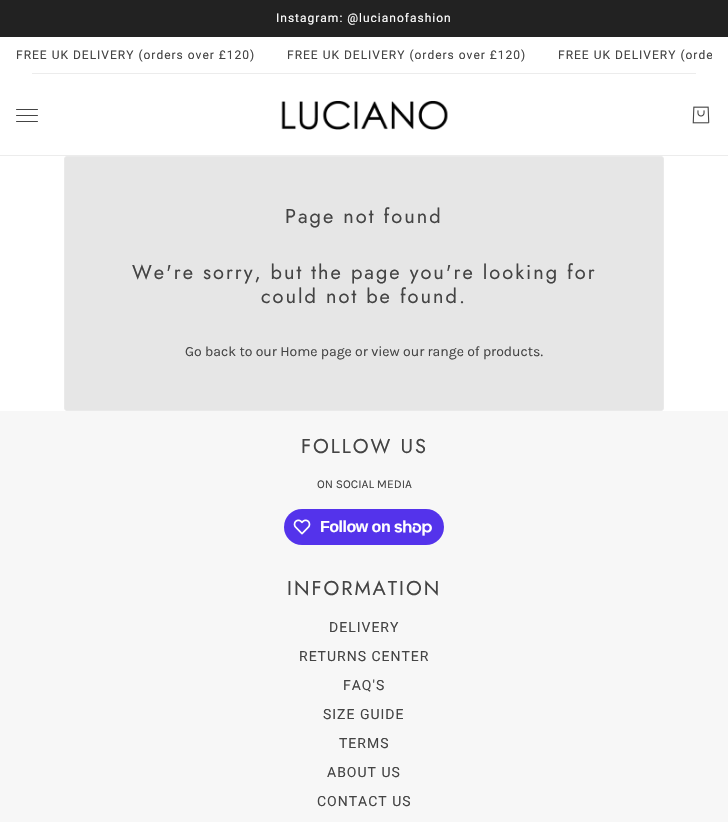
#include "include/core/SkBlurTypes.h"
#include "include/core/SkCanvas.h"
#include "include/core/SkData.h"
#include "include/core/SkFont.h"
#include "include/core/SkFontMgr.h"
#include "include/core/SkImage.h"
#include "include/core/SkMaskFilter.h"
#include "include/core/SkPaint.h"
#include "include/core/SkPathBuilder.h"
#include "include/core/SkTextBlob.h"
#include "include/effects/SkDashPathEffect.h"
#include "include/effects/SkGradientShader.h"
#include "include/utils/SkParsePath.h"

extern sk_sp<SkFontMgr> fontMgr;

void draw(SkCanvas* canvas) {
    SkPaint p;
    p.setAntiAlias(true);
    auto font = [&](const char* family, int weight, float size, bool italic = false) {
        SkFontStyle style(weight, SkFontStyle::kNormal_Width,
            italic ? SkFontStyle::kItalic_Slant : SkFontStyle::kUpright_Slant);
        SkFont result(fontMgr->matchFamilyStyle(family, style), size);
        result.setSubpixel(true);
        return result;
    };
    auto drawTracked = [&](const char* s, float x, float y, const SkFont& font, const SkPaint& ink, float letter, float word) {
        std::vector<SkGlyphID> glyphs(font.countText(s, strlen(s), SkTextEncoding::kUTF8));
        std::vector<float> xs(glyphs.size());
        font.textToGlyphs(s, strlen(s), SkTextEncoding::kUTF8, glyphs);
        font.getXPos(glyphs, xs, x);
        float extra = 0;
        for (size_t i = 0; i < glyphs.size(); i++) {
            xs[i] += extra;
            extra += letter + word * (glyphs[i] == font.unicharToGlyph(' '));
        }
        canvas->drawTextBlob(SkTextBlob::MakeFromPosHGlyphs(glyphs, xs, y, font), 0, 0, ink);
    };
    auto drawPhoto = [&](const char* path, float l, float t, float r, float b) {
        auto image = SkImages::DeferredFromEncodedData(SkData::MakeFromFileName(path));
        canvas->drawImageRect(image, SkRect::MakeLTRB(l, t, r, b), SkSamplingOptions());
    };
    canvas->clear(0xFFFFFFFF);
    p.setColor(0xFF222222);
    canvas->drawRect(SkRect::MakeLTRB(0, 0, 728, 37), p);
    auto font1 = font("Roboto", 400, 12);
    p.setColor(0xFFFFFFFF);
    drawTracked("Instagram: @lucianofashion", 276, 22, font1, p, 1, 0);
    p.setColor(0xFF444444);
    drawTracked("FREE UK DELIVERY (orders over £120)", 16, 59, font1, p, 1, 0);
    drawTracked("FREE UK DELIVERY (orders over £120)", 287, 59, font1, p, 1, 0);
    canvas->save();
    canvas->clipRect(SkRect::MakeLTRB(16, 45, 712, 66));
    drawTracked("FREE UK DELIVERY (orde", 558, 59, font1, p, 1, 0);
    canvas->restore();
    p.setColor(0xFFECECEC);
    canvas->drawRect(SkRect::MakeLTRB(32, 73, 696, 74), p);
    p.setColor(0xFF444444);
    canvas->drawRoundRect(SkRect::MakeLTRB(16, 109, 38, 110), 0.5f, 0.5f, p);
    canvas->drawRoundRect(SkRect::MakeLTRB(16, 115, 38, 116), 0.5f, 0.5f, p);
    canvas->drawRoundRect(SkRect::MakeLTRB(16, 121, 38, 122), 0.5f, 0.5f, p);
    drawPhoto("media/1.png", 281, 100, 448, 130);
    drawPhoto("media/2.png", 692, 106, 710, 124);
    p.setColor(0xFFECECEC);
    canvas->drawRect(SkRect::MakeLTRB(0, 155, 728, 156), p);
    p.setColor(0xFFE6E6E6);
    canvas->drawRoundRect(SkRect::MakeLTRB(64.5f, 156.5f, 663.5f, 410.5f), 2.5f, 2.5f, p);
    p.setStyle(SkPaint::kStroke_Style);
    p.setStrokeWidth(1);
    p.setColor(0xFFEAEAEA);
    canvas->drawRoundRect(SkRect::MakeLTRB(64.5f, 156.5f, 663.5f, 410.5f), 2.5f, 2.5f, p);
    auto font2 = font("Jost", 400, 20);
    p.setStyle(SkPaint::kFill_Style);
    p.setColor(0xFF444444);
    {
        const struct { const char* s; float x, y; } items[] = {
            {"Page not found", 285, 223},
            {"We're sorry, but the page you're looking for", 132, 279},
            {"could not be found.", 261, 303},
        };
        for (auto [s, x, y] : items) {
            drawTracked(s, x, y, font2, p, 2, 0);
        }
    }
    auto font3 = font("Karla", 400, 14);
    canvas->drawString("Go back to our Home page or view our range of products.", 185, 356, font3, p);
    p.setColor(0xFFF7F7F7);
    canvas->drawRect(SkRect::MakeLTRB(0, 411, 728, 822), p);
    p.setColor(0xFF444444);
    drawTracked("FOLLOW US", 301, 453, font2, p, 2, 0);
    auto font4 = font("Karla", 400, 12);
    canvas->drawString("ON SOCIAL MEDIA", 317, 488, font4, p);
    p.setColor(0xFF5433EB);
    canvas->drawRoundRect(SkRect::MakeLTRB(284, 509, 444, 545), 18, 18, p);
    drawPhoto("media/3.png", 293, 519, 311, 535);
    auto font5 = font("Liberation Sans", 700, 16);
    p.setColor(0xFFFFFFFF);
    drawTracked("Follow on", 320, 532, font5, p, -0.5f, 0);
    drawPhoto("media/4.png", 394, 520, 432, 536);
    p.setColor(0xFF444444);
    drawTracked("INFORMATION", 287, 595, font2, p, 2, 0);
    auto font6 = font("Roboto", 400, 14);
    {
        const struct { const char* s; float x, y; } items[] = {
            {"DELIVERY", 329, 632},
            {"RETURNS CENTER", 299, 661},
            {"FAQ'S", 343, 690},
            {"SIZE GUIDE", 323, 719},
            {"TERMS", 339, 748},
            {"ABOUT US", 327, 777},
            {"CONTACT US", 317, 806},
        };
        for (auto [s, x, y] : items) {
            drawTracked(s, x, y, font6, p, 1, 0);
        }
    }
}
